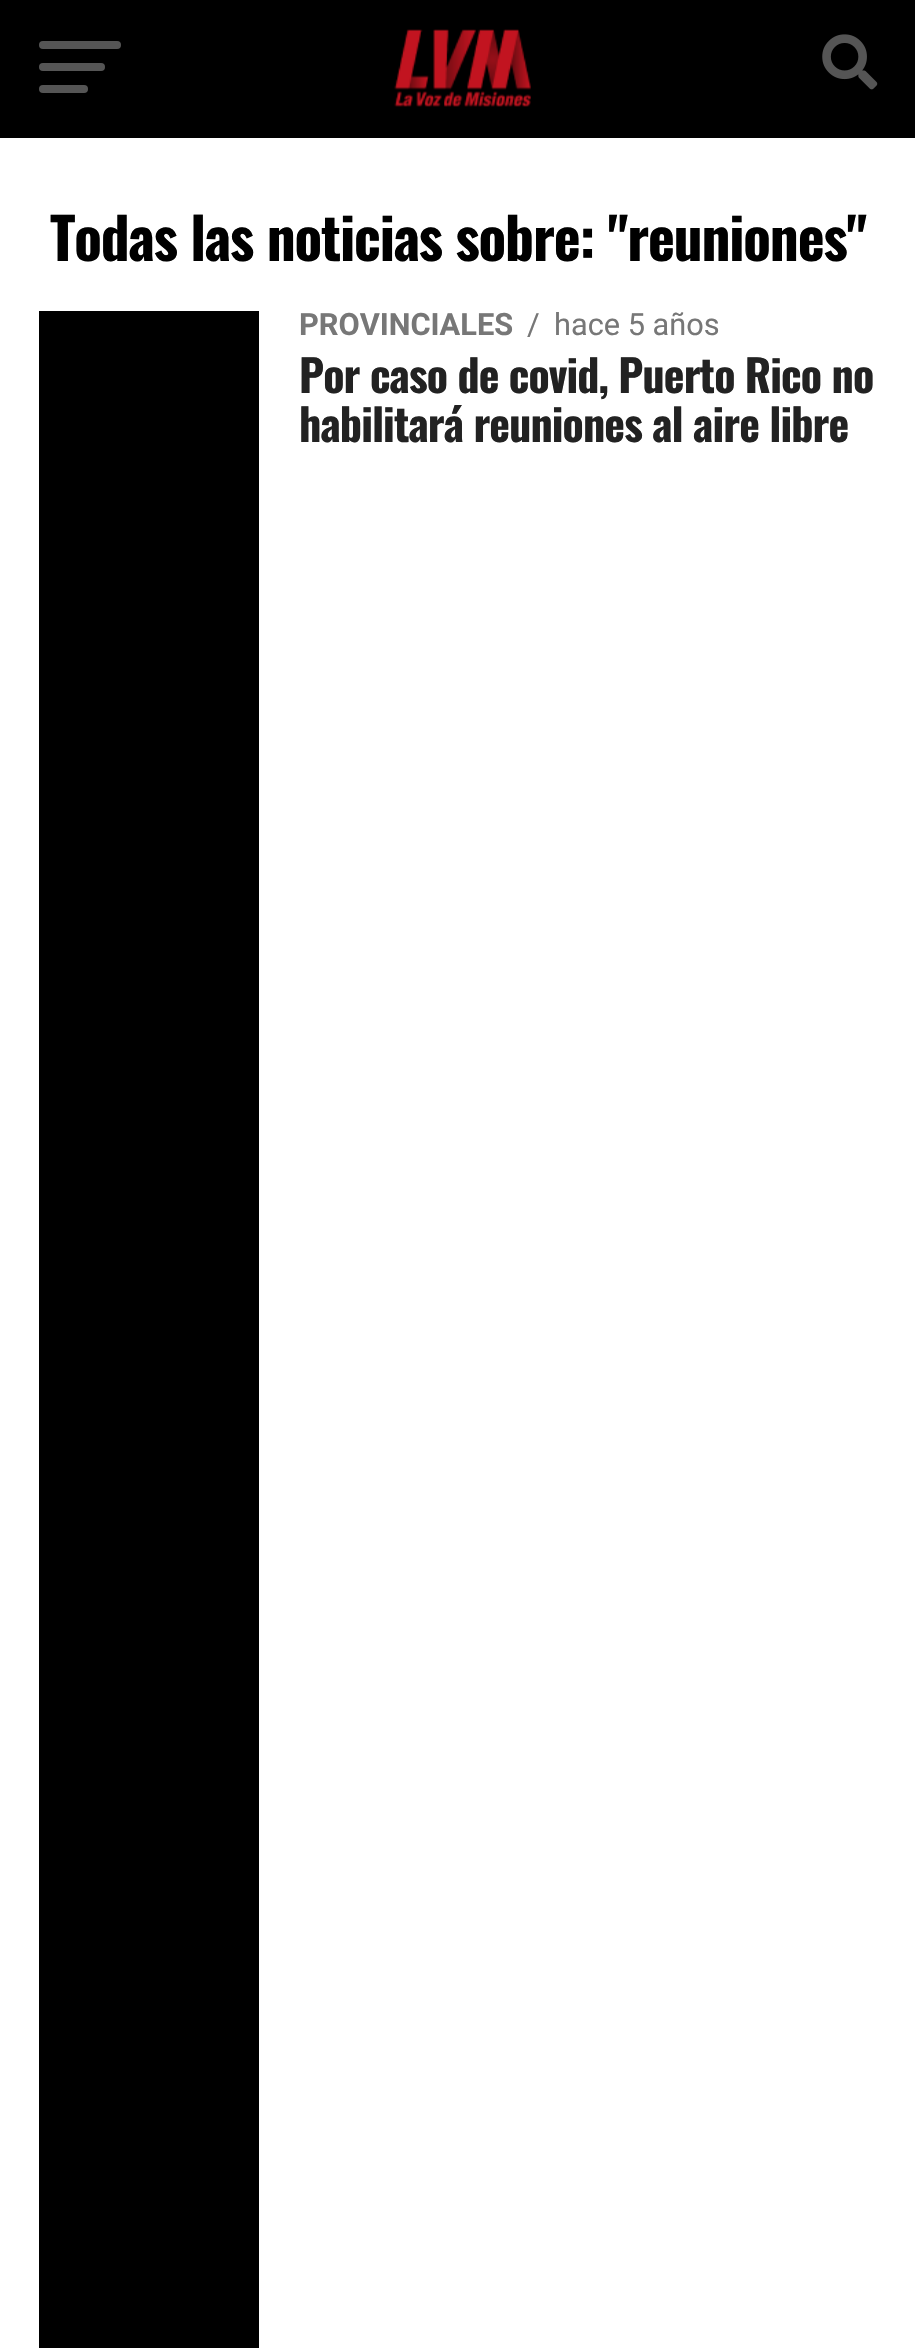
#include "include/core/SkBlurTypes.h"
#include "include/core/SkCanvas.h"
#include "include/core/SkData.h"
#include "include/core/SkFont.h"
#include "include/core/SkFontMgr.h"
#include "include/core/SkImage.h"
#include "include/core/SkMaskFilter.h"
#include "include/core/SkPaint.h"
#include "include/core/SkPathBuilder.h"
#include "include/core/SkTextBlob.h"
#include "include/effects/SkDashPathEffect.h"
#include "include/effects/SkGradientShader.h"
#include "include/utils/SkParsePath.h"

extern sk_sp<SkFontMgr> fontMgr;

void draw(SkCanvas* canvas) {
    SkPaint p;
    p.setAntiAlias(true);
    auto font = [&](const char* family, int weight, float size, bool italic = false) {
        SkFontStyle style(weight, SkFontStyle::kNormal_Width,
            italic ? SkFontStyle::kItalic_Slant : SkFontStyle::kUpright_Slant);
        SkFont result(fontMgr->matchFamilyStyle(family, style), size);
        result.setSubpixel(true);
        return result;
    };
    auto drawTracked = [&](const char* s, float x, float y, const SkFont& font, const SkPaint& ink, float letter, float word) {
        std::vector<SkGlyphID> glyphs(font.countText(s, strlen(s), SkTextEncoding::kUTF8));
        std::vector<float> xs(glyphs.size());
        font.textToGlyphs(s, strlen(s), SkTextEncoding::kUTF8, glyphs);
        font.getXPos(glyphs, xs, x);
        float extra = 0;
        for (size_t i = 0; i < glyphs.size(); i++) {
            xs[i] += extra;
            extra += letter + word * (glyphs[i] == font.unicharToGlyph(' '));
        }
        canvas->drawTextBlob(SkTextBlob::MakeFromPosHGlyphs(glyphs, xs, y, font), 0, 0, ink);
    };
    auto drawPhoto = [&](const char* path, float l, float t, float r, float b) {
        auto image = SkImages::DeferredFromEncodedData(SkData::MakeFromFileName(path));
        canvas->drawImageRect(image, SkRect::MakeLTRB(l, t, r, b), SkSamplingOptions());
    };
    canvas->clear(0xFFFFFFFF);
    p.setColor(0xFF000000);
    canvas->drawRect(SkRect::MakeLTRB(0, 0, 915, 138), p);
    p.setColor(0xFF555555);
    canvas->drawRoundRect(SkRect::MakeLTRB(39, 41, 121, 49), 4, 4, p);
    canvas->drawRoundRect(SkRect::MakeLTRB(39, 63, 105, 71), 4, 4, p);
    canvas->drawRoundRect(SkRect::MakeLTRB(39, 85, 88, 93), 4, 4, p);
    drawPhoto("media/1.png", 394, 29, 531, 107);
    drawPhoto("media/2.png", 822, 34, 878, 90);
    auto font1 = font("Oswald", 700, 57.25f);
    p.setColor(0xFF000000);
    drawTracked("Todas las noticias sobre: \"reuniones\"", 50, 261, font1, p, -1.15f, 0);
    canvas->drawRect(SkRect::MakeLTRB(39, 311, 259, 2348), p);
    auto font2 = font("Roboto", 700, 30.75f);
    p.setColor(0xFF777777);
    canvas->drawString("PROVINCIALES", 299, 335, font2, p);
    auto font3 = font("Roboto", 400, 30.75f);
    canvas->drawString("/", 527, 335, font3, p);
    canvas->drawString("hace 5 años", 554, 335, font3, p);
    auto font4 = font("Oswald", 700, 44);
    p.setColor(0xFF222222);
    drawTracked("Por caso de covid, Puerto Rico no", 299, 393, font4, p, -0.9f, 0);
    drawTracked("habilitará reuniones al aire libre", 299, 442, font4, p, -0.9f, 0);
}
